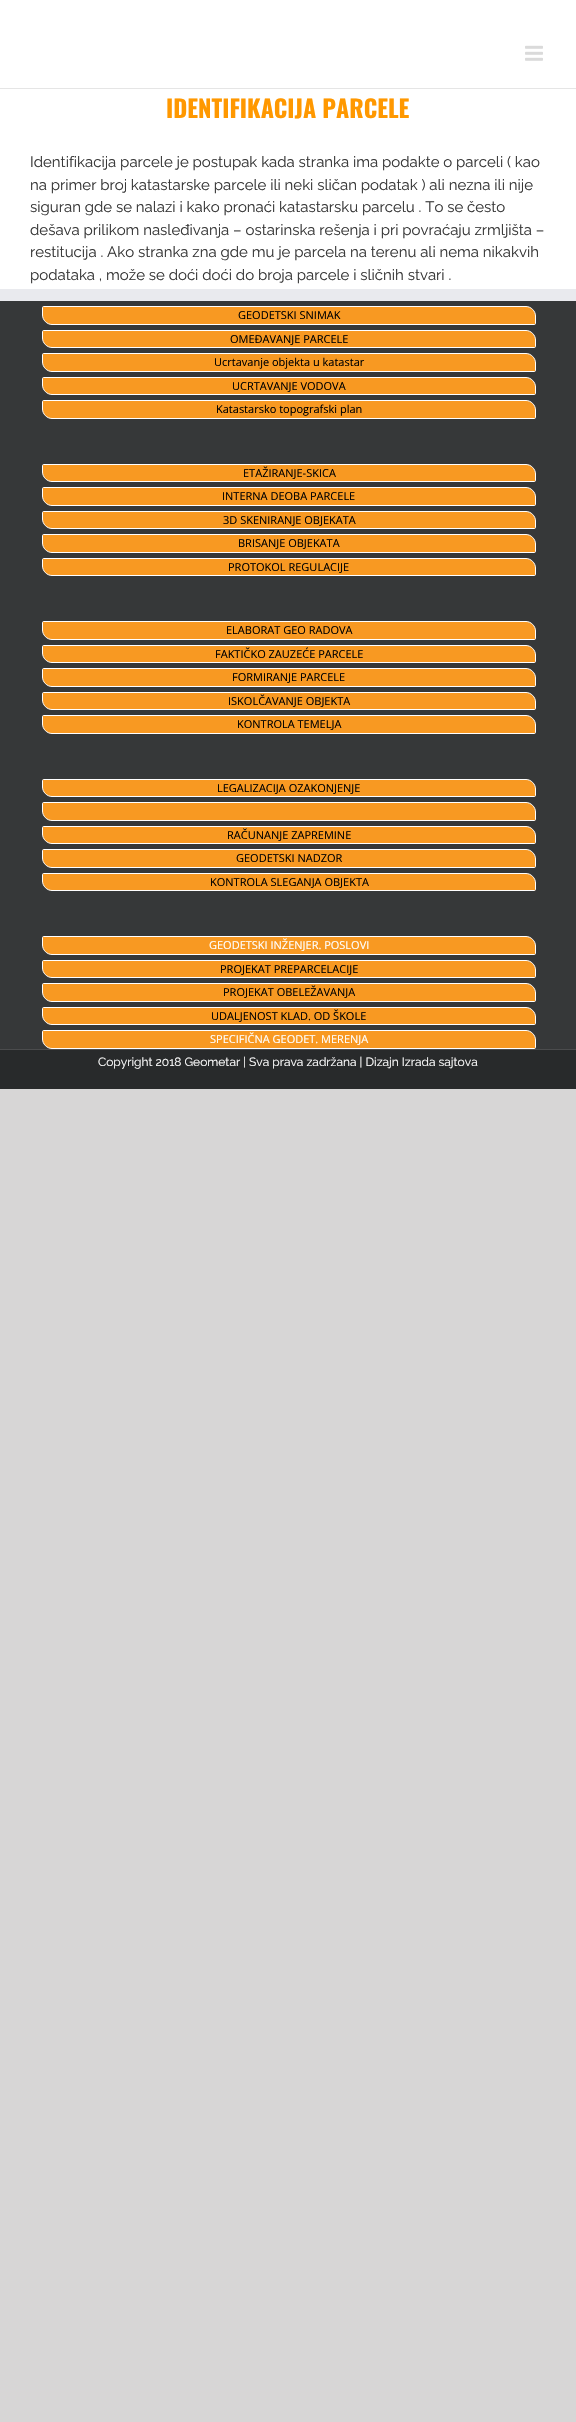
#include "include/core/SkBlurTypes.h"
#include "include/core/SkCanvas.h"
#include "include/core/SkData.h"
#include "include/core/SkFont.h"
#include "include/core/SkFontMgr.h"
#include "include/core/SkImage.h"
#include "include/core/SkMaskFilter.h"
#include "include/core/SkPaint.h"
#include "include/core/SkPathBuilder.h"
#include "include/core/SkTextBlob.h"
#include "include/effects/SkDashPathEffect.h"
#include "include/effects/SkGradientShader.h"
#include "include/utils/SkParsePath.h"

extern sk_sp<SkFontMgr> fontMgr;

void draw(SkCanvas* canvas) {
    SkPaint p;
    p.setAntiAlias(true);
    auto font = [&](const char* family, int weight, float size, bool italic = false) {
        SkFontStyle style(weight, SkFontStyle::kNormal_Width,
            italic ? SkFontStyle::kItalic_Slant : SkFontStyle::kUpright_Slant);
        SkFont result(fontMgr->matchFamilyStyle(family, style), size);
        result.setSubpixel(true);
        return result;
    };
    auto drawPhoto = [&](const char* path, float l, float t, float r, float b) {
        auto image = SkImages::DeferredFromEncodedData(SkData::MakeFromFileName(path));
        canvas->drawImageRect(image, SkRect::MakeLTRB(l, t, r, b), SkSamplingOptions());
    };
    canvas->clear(0xFFD7D6D6);
    p.setColor(0xFFFFFFFF);
    canvas->drawRect(SkRect::MakeLTRB(0, 0, 576, 289), p);
    p.setColor(0xFFE5E5E5);
    canvas->drawRect(SkRect::MakeLTRB(0, 88, 576, 89), p);
    drawPhoto("media/1.png", 525, 45, 543, 61);
    auto font1 = font("Oswald", 700, 24);
    p.setColor(0xFFFF9800);
    canvas->drawString("IDENTIFIKACIJA PARCELE", 166, 118, font1, p);
    auto font2 = font("Raleway", 400, 15);
    p.setColor(0xFF383838);
    {
        const struct { const char* s; float x, y; } items[] = {
            {"Identifikacija parcele je postupak kada stranka ima podakte o parceli ( kao", 30, 167},
            {"na primer broj katastarske parcele ili neki sličan podatak ) ali nezna ili nije", 30, 190},
            {"siguran gde se nalazi i kako pronaći katastarsku parcelu . To se često", 30, 212},
            {"dešava prilikom nasleđivanja – ostarinska rešenja i pri povraćaju zrmljišta –", 30, 235},
            {"restitucija . Ako stranka zna gde mu je parcela na terenu ali nema nikakvih", 30, 257},
            {"podataka , može se doći doći do broja parcele i sličnih stvari .", 30, 280},
        };
        for (auto [s, x, y] : items) {
            canvas->drawString(s, x, y, font2, p);
        }
    }
    p.setColor(0xFF363839);
    canvas->drawRect(SkRect::MakeLTRB(0, 301, 576, 1049), p);
    p.setColor(0xFFE9EAEE);
    canvas->drawRect(SkRect::MakeLTRB(0, 289, 576, 301), p);
    p.setColor(0xFFF89922);
    canvas->drawPath(SkPathBuilder().moveTo(43.5f, 306.5f).lineTo(526, 306.5f).cubicTo(531, 306.5f, 535.5f, 311, 535.5f, 316).lineTo(535.5f, 323.5f).cubicTo(535.5f, 324, 535, 324.5f, 534.5f, 324.5f).lineTo(52, 324.5f).cubicTo(47, 324.5f, 42.5f, 320, 42.5f, 315).lineTo(42.5f, 307.5f).cubicTo(42.5f, 307, 43, 306.5f, 43.5f, 306.5f).close().detach(), p);
    p.setStyle(SkPaint::kStroke_Style);
    p.setStrokeWidth(1);
    p.setColor(0xFFFFFFFF);
    canvas->drawPath(SkPathBuilder().moveTo(43.5f, 306.5f).lineTo(526, 306.5f).cubicTo(531, 306.5f, 535.5f, 311, 535.5f, 316).lineTo(535.5f, 323.5f).cubicTo(535.5f, 324, 535, 324.5f, 534.5f, 324.5f).lineTo(52, 324.5f).cubicTo(47, 324.5f, 42.5f, 320, 42.5f, 315).lineTo(42.5f, 307.5f).cubicTo(42.5f, 307, 43, 306.5f, 43.5f, 306.5f).close().detach(), p);
    auto font3 = font("Open Sans", 400, 11);
    p.setStyle(SkPaint::kFill_Style);
    p.setColor(0xFF000000);
    canvas->drawString("GEODETSKI SNIMAK", 238, 319, font3, p);
    p.setColor(0xFFF89922);
    canvas->drawPath(SkPathBuilder().moveTo(43.5f, 330.5f).lineTo(526, 330.5f).cubicTo(531, 330.5f, 535.5f, 335, 535.5f, 340).lineTo(535.5f, 346.5f).cubicTo(535.5f, 347, 535, 347.5f, 534.5f, 347.5f).lineTo(52, 347.5f).cubicTo(47, 347.5f, 42.5f, 343, 42.5f, 338).lineTo(42.5f, 331.5f).cubicTo(42.5f, 331, 43, 330.5f, 43.5f, 330.5f).close().detach(), p);
    p.setStyle(SkPaint::kStroke_Style);
    p.setColor(0xFFFFFFFF);
    canvas->drawPath(SkPathBuilder().moveTo(43.5f, 330.5f).lineTo(526, 330.5f).cubicTo(531, 330.5f, 535.5f, 335, 535.5f, 340).lineTo(535.5f, 346.5f).cubicTo(535.5f, 347, 535, 347.5f, 534.5f, 347.5f).lineTo(52, 347.5f).cubicTo(47, 347.5f, 42.5f, 343, 42.5f, 338).lineTo(42.5f, 331.5f).cubicTo(42.5f, 331, 43, 330.5f, 43.5f, 330.5f).close().detach(), p);
    p.setStyle(SkPaint::kFill_Style);
    p.setColor(0xFF000000);
    canvas->drawString("OMEĐAVANJE PARCELE", 230, 343, font3, p);
    p.setColor(0xFFF89922);
    canvas->drawPath(SkPathBuilder().moveTo(43.5f, 353.5f).lineTo(526, 353.5f).cubicTo(531, 353.5f, 535.5f, 358, 535.5f, 363).lineTo(535.5f, 370.5f).cubicTo(535.5f, 371, 535, 371.5f, 534.5f, 371.5f).lineTo(52, 371.5f).cubicTo(47, 371.5f, 42.5f, 367, 42.5f, 362).lineTo(42.5f, 354.5f).cubicTo(42.5f, 354, 43, 353.5f, 43.5f, 353.5f).close().detach(), p);
    p.setStyle(SkPaint::kStroke_Style);
    p.setColor(0xFFFFFFFF);
    canvas->drawPath(SkPathBuilder().moveTo(43.5f, 353.5f).lineTo(526, 353.5f).cubicTo(531, 353.5f, 535.5f, 358, 535.5f, 363).lineTo(535.5f, 370.5f).cubicTo(535.5f, 371, 535, 371.5f, 534.5f, 371.5f).lineTo(52, 371.5f).cubicTo(47, 371.5f, 42.5f, 367, 42.5f, 362).lineTo(42.5f, 354.5f).cubicTo(42.5f, 354, 43, 353.5f, 43.5f, 353.5f).close().detach(), p);
    p.setStyle(SkPaint::kFill_Style);
    p.setColor(0xFF000000);
    canvas->drawString("Ucrtavanje objekta u katastar", 214, 366, font3, p);
    p.setColor(0xFFF89922);
    canvas->drawPath(SkPathBuilder().moveTo(43.5f, 377.5f).lineTo(526, 377.5f).cubicTo(531, 377.5f, 535.5f, 382, 535.5f, 387).lineTo(535.5f, 393.5f).cubicTo(535.5f, 394, 535, 394.5f, 534.5f, 394.5f).lineTo(52, 394.5f).cubicTo(47, 394.5f, 42.5f, 390, 42.5f, 385).lineTo(42.5f, 378.5f).cubicTo(42.5f, 378, 43, 377.5f, 43.5f, 377.5f).close().detach(), p);
    p.setStyle(SkPaint::kStroke_Style);
    p.setColor(0xFFFFFFFF);
    canvas->drawPath(SkPathBuilder().moveTo(43.5f, 377.5f).lineTo(526, 377.5f).cubicTo(531, 377.5f, 535.5f, 382, 535.5f, 387).lineTo(535.5f, 393.5f).cubicTo(535.5f, 394, 535, 394.5f, 534.5f, 394.5f).lineTo(52, 394.5f).cubicTo(47, 394.5f, 42.5f, 390, 42.5f, 385).lineTo(42.5f, 378.5f).cubicTo(42.5f, 378, 43, 377.5f, 43.5f, 377.5f).close().detach(), p);
    p.setStyle(SkPaint::kFill_Style);
    p.setColor(0xFF000000);
    canvas->drawString("UCRTAVANJE VODOVA", 232, 390, font3, p);
    p.setColor(0xFFF89922);
    canvas->drawPath(SkPathBuilder().moveTo(43.5f, 400.5f).lineTo(526, 400.5f).cubicTo(531, 400.5f, 535.5f, 405, 535.5f, 410).lineTo(535.5f, 417.5f).cubicTo(535.5f, 418, 535, 418.5f, 534.5f, 418.5f).lineTo(52, 418.5f).cubicTo(47, 418.5f, 42.5f, 414, 42.5f, 409).lineTo(42.5f, 401.5f).cubicTo(42.5f, 401, 43, 400.5f, 43.5f, 400.5f).close().detach(), p);
    p.setStyle(SkPaint::kStroke_Style);
    p.setColor(0xFFFFFFFF);
    canvas->drawPath(SkPathBuilder().moveTo(43.5f, 400.5f).lineTo(526, 400.5f).cubicTo(531, 400.5f, 535.5f, 405, 535.5f, 410).lineTo(535.5f, 417.5f).cubicTo(535.5f, 418, 535, 418.5f, 534.5f, 418.5f).lineTo(52, 418.5f).cubicTo(47, 418.5f, 42.5f, 414, 42.5f, 409).lineTo(42.5f, 401.5f).cubicTo(42.5f, 401, 43, 400.5f, 43.5f, 400.5f).close().detach(), p);
    p.setStyle(SkPaint::kFill_Style);
    p.setColor(0xFF000000);
    canvas->drawString("Katastarsko topografski plan", 216, 413, font3, p);
    p.setColor(0xFFF89922);
    canvas->drawPath(SkPathBuilder().moveTo(43.5f, 464.5f).lineTo(526, 464.5f).cubicTo(531, 464.5f, 535.5f, 469, 535.5f, 474).lineTo(535.5f, 480.5f).cubicTo(535.5f, 481, 535, 481.5f, 534.5f, 481.5f).lineTo(52, 481.5f).cubicTo(47, 481.5f, 42.5f, 477, 42.5f, 472).lineTo(42.5f, 465.5f).cubicTo(42.5f, 465, 43, 464.5f, 43.5f, 464.5f).close().detach(), p);
    p.setStyle(SkPaint::kStroke_Style);
    p.setColor(0xFFFFFFFF);
    canvas->drawPath(SkPathBuilder().moveTo(43.5f, 464.5f).lineTo(526, 464.5f).cubicTo(531, 464.5f, 535.5f, 469, 535.5f, 474).lineTo(535.5f, 480.5f).cubicTo(535.5f, 481, 535, 481.5f, 534.5f, 481.5f).lineTo(52, 481.5f).cubicTo(47, 481.5f, 42.5f, 477, 42.5f, 472).lineTo(42.5f, 465.5f).cubicTo(42.5f, 465, 43, 464.5f, 43.5f, 464.5f).close().detach(), p);
    p.setStyle(SkPaint::kFill_Style);
    p.setColor(0xFF000000);
    canvas->drawString("ETAŽIRANJE-SKICA", 243, 477, font3, p);
    p.setColor(0xFFF89922);
    canvas->drawPath(SkPathBuilder().moveTo(43.5f, 487.5f).lineTo(526, 487.5f).cubicTo(531, 487.5f, 535.5f, 492, 535.5f, 497).lineTo(535.5f, 504.5f).cubicTo(535.5f, 505, 535, 505.5f, 534.5f, 505.5f).lineTo(52, 505.5f).cubicTo(47, 505.5f, 42.5f, 501, 42.5f, 496).lineTo(42.5f, 488.5f).cubicTo(42.5f, 488, 43, 487.5f, 43.5f, 487.5f).close().detach(), p);
    p.setStyle(SkPaint::kStroke_Style);
    p.setColor(0xFFFFFFFF);
    canvas->drawPath(SkPathBuilder().moveTo(43.5f, 487.5f).lineTo(526, 487.5f).cubicTo(531, 487.5f, 535.5f, 492, 535.5f, 497).lineTo(535.5f, 504.5f).cubicTo(535.5f, 505, 535, 505.5f, 534.5f, 505.5f).lineTo(52, 505.5f).cubicTo(47, 505.5f, 42.5f, 501, 42.5f, 496).lineTo(42.5f, 488.5f).cubicTo(42.5f, 488, 43, 487.5f, 43.5f, 487.5f).close().detach(), p);
    p.setStyle(SkPaint::kFill_Style);
    p.setColor(0xFF000000);
    canvas->drawString("INTERNA DEOBA PARCELE", 222, 500, font3, p);
    p.setColor(0xFFF89922);
    canvas->drawPath(SkPathBuilder().moveTo(43.5f, 511.5f).lineTo(526, 511.5f).cubicTo(531, 511.5f, 535.5f, 516, 535.5f, 521).lineTo(535.5f, 527.5f).cubicTo(535.5f, 528, 535, 528.5f, 534.5f, 528.5f).lineTo(52, 528.5f).cubicTo(47, 528.5f, 42.5f, 524, 42.5f, 519).lineTo(42.5f, 512.5f).cubicTo(42.5f, 512, 43, 511.5f, 43.5f, 511.5f).close().detach(), p);
    p.setStyle(SkPaint::kStroke_Style);
    p.setColor(0xFFFFFFFF);
    canvas->drawPath(SkPathBuilder().moveTo(43.5f, 511.5f).lineTo(526, 511.5f).cubicTo(531, 511.5f, 535.5f, 516, 535.5f, 521).lineTo(535.5f, 527.5f).cubicTo(535.5f, 528, 535, 528.5f, 534.5f, 528.5f).lineTo(52, 528.5f).cubicTo(47, 528.5f, 42.5f, 524, 42.5f, 519).lineTo(42.5f, 512.5f).cubicTo(42.5f, 512, 43, 511.5f, 43.5f, 511.5f).close().detach(), p);
    p.setStyle(SkPaint::kFill_Style);
    p.setColor(0xFF000000);
    canvas->drawString("3D SKENIRANJE OBJEKATA", 223, 524, font3, p);
    p.setColor(0xFFF89922);
    canvas->drawPath(SkPathBuilder().moveTo(43.5f, 534.5f).lineTo(526, 534.5f).cubicTo(531, 534.5f, 535.5f, 539, 535.5f, 544).lineTo(535.5f, 551.5f).cubicTo(535.5f, 552, 535, 552.5f, 534.5f, 552.5f).lineTo(52, 552.5f).cubicTo(47, 552.5f, 42.5f, 548, 42.5f, 543).lineTo(42.5f, 535.5f).cubicTo(42.5f, 535, 43, 534.5f, 43.5f, 534.5f).close().detach(), p);
    p.setStyle(SkPaint::kStroke_Style);
    p.setColor(0xFFFFFFFF);
    canvas->drawPath(SkPathBuilder().moveTo(43.5f, 534.5f).lineTo(526, 534.5f).cubicTo(531, 534.5f, 535.5f, 539, 535.5f, 544).lineTo(535.5f, 551.5f).cubicTo(535.5f, 552, 535, 552.5f, 534.5f, 552.5f).lineTo(52, 552.5f).cubicTo(47, 552.5f, 42.5f, 548, 42.5f, 543).lineTo(42.5f, 535.5f).cubicTo(42.5f, 535, 43, 534.5f, 43.5f, 534.5f).close().detach(), p);
    p.setStyle(SkPaint::kFill_Style);
    p.setColor(0xFF000000);
    canvas->drawString("BRISANJE OBJEKATA", 238, 547, font3, p);
    p.setColor(0xFFF89922);
    canvas->drawPath(SkPathBuilder().moveTo(43.5f, 558.5f).lineTo(526, 558.5f).cubicTo(531, 558.5f, 535.5f, 563, 535.5f, 568).lineTo(535.5f, 574.5f).cubicTo(535.5f, 575, 535, 575.5f, 534.5f, 575.5f).lineTo(52, 575.5f).cubicTo(47, 575.5f, 42.5f, 571, 42.5f, 566).lineTo(42.5f, 559.5f).cubicTo(42.5f, 559, 43, 558.5f, 43.5f, 558.5f).close().detach(), p);
    p.setStyle(SkPaint::kStroke_Style);
    p.setColor(0xFFFFFFFF);
    canvas->drawPath(SkPathBuilder().moveTo(43.5f, 558.5f).lineTo(526, 558.5f).cubicTo(531, 558.5f, 535.5f, 563, 535.5f, 568).lineTo(535.5f, 574.5f).cubicTo(535.5f, 575, 535, 575.5f, 534.5f, 575.5f).lineTo(52, 575.5f).cubicTo(47, 575.5f, 42.5f, 571, 42.5f, 566).lineTo(42.5f, 559.5f).cubicTo(42.5f, 559, 43, 558.5f, 43.5f, 558.5f).close().detach(), p);
    p.setStyle(SkPaint::kFill_Style);
    p.setColor(0xFF000000);
    canvas->drawString("PROTOKOL REGULACIJE", 228, 571, font3, p);
    p.setColor(0xFFF89922);
    canvas->drawPath(SkPathBuilder().moveTo(43.5f, 621.5f).lineTo(526, 621.5f).cubicTo(531, 621.5f, 535.5f, 626, 535.5f, 631).lineTo(535.5f, 638.5f).cubicTo(535.5f, 639, 535, 639.5f, 534.5f, 639.5f).lineTo(52, 639.5f).cubicTo(47, 639.5f, 42.5f, 635, 42.5f, 630).lineTo(42.5f, 622.5f).cubicTo(42.5f, 622, 43, 621.5f, 43.5f, 621.5f).close().detach(), p);
    p.setStyle(SkPaint::kStroke_Style);
    p.setColor(0xFFFFFFFF);
    canvas->drawPath(SkPathBuilder().moveTo(43.5f, 621.5f).lineTo(526, 621.5f).cubicTo(531, 621.5f, 535.5f, 626, 535.5f, 631).lineTo(535.5f, 638.5f).cubicTo(535.5f, 639, 535, 639.5f, 534.5f, 639.5f).lineTo(52, 639.5f).cubicTo(47, 639.5f, 42.5f, 635, 42.5f, 630).lineTo(42.5f, 622.5f).cubicTo(42.5f, 622, 43, 621.5f, 43.5f, 621.5f).close().detach(), p);
    p.setStyle(SkPaint::kFill_Style);
    p.setColor(0xFF000000);
    canvas->drawString("ELABORAT GEO RADOVA", 226, 634, font3, p);
    p.setColor(0xFFF89922);
    canvas->drawPath(SkPathBuilder().moveTo(43.5f, 645.5f).lineTo(526, 645.5f).cubicTo(531, 645.5f, 535.5f, 650, 535.5f, 655).lineTo(535.5f, 661.5f).cubicTo(535.5f, 662, 535, 662.5f, 534.5f, 662.5f).lineTo(52, 662.5f).cubicTo(47, 662.5f, 42.5f, 658, 42.5f, 653).lineTo(42.5f, 646.5f).cubicTo(42.5f, 646, 43, 645.5f, 43.5f, 645.5f).close().detach(), p);
    p.setStyle(SkPaint::kStroke_Style);
    p.setColor(0xFFFFFFFF);
    canvas->drawPath(SkPathBuilder().moveTo(43.5f, 645.5f).lineTo(526, 645.5f).cubicTo(531, 645.5f, 535.5f, 650, 535.5f, 655).lineTo(535.5f, 661.5f).cubicTo(535.5f, 662, 535, 662.5f, 534.5f, 662.5f).lineTo(52, 662.5f).cubicTo(47, 662.5f, 42.5f, 658, 42.5f, 653).lineTo(42.5f, 646.5f).cubicTo(42.5f, 646, 43, 645.5f, 43.5f, 645.5f).close().detach(), p);
    p.setStyle(SkPaint::kFill_Style);
    p.setColor(0xFF000000);
    canvas->drawString("FAKTIČKO ZAUZEĆE PARCELE", 215, 658, font3, p);
    p.setColor(0xFFF89922);
    canvas->drawPath(SkPathBuilder().moveTo(43.5f, 668.5f).lineTo(526, 668.5f).cubicTo(531, 668.5f, 535.5f, 673, 535.5f, 678).lineTo(535.5f, 685.5f).cubicTo(535.5f, 686, 535, 686.5f, 534.5f, 686.5f).lineTo(52, 686.5f).cubicTo(47, 686.5f, 42.5f, 682, 42.5f, 677).lineTo(42.5f, 669.5f).cubicTo(42.5f, 669, 43, 668.5f, 43.5f, 668.5f).close().detach(), p);
    p.setStyle(SkPaint::kStroke_Style);
    p.setColor(0xFFFFFFFF);
    canvas->drawPath(SkPathBuilder().moveTo(43.5f, 668.5f).lineTo(526, 668.5f).cubicTo(531, 668.5f, 535.5f, 673, 535.5f, 678).lineTo(535.5f, 685.5f).cubicTo(535.5f, 686, 535, 686.5f, 534.5f, 686.5f).lineTo(52, 686.5f).cubicTo(47, 686.5f, 42.5f, 682, 42.5f, 677).lineTo(42.5f, 669.5f).cubicTo(42.5f, 669, 43, 668.5f, 43.5f, 668.5f).close().detach(), p);
    p.setStyle(SkPaint::kFill_Style);
    p.setColor(0xFF000000);
    canvas->drawString("FORMIRANJE PARCELE", 232, 681, font3, p);
    p.setColor(0xFFF89922);
    canvas->drawPath(SkPathBuilder().moveTo(43.5f, 692.5f).lineTo(526, 692.5f).cubicTo(531, 692.5f, 535.5f, 697, 535.5f, 702).lineTo(535.5f, 708.5f).cubicTo(535.5f, 709, 535, 709.5f, 534.5f, 709.5f).lineTo(52, 709.5f).cubicTo(47, 709.5f, 42.5f, 705, 42.5f, 700).lineTo(42.5f, 693.5f).cubicTo(42.5f, 693, 43, 692.5f, 43.5f, 692.5f).close().detach(), p);
    p.setStyle(SkPaint::kStroke_Style);
    p.setColor(0xFFFFFFFF);
    canvas->drawPath(SkPathBuilder().moveTo(43.5f, 692.5f).lineTo(526, 692.5f).cubicTo(531, 692.5f, 535.5f, 697, 535.5f, 702).lineTo(535.5f, 708.5f).cubicTo(535.5f, 709, 535, 709.5f, 534.5f, 709.5f).lineTo(52, 709.5f).cubicTo(47, 709.5f, 42.5f, 705, 42.5f, 700).lineTo(42.5f, 693.5f).cubicTo(42.5f, 693, 43, 692.5f, 43.5f, 692.5f).close().detach(), p);
    p.setStyle(SkPaint::kFill_Style);
    p.setColor(0xFF000000);
    canvas->drawString("ISKOLČAVANJE OBJEKTA", 228, 705, font3, p);
    p.setColor(0xFFF89922);
    canvas->drawPath(SkPathBuilder().moveTo(43.5f, 715.5f).lineTo(526, 715.5f).cubicTo(531, 715.5f, 535.5f, 720, 535.5f, 725).lineTo(535.5f, 732.5f).cubicTo(535.5f, 733, 535, 733.5f, 534.5f, 733.5f).lineTo(52, 733.5f).cubicTo(47, 733.5f, 42.5f, 729, 42.5f, 724).lineTo(42.5f, 716.5f).cubicTo(42.5f, 716, 43, 715.5f, 43.5f, 715.5f).close().detach(), p);
    p.setStyle(SkPaint::kStroke_Style);
    p.setColor(0xFFFFFFFF);
    canvas->drawPath(SkPathBuilder().moveTo(43.5f, 715.5f).lineTo(526, 715.5f).cubicTo(531, 715.5f, 535.5f, 720, 535.5f, 725).lineTo(535.5f, 732.5f).cubicTo(535.5f, 733, 535, 733.5f, 534.5f, 733.5f).lineTo(52, 733.5f).cubicTo(47, 733.5f, 42.5f, 729, 42.5f, 724).lineTo(42.5f, 716.5f).cubicTo(42.5f, 716, 43, 715.5f, 43.5f, 715.5f).close().detach(), p);
    p.setStyle(SkPaint::kFill_Style);
    p.setColor(0xFF000000);
    canvas->drawString("KONTROLA TEMELJA", 237, 728, font3, p);
    p.setColor(0xFFF89922);
    canvas->drawPath(SkPathBuilder().moveTo(43.5f, 779.5f).lineTo(526, 779.5f).cubicTo(531, 779.5f, 535.5f, 784, 535.5f, 789).lineTo(535.5f, 795.5f).cubicTo(535.5f, 796, 535, 796.5f, 534.5f, 796.5f).lineTo(52, 796.5f).cubicTo(47, 796.5f, 42.5f, 792, 42.5f, 787).lineTo(42.5f, 780.5f).cubicTo(42.5f, 780, 43, 779.5f, 43.5f, 779.5f).close().detach(), p);
    p.setStyle(SkPaint::kStroke_Style);
    p.setColor(0xFFFFFFFF);
    canvas->drawPath(SkPathBuilder().moveTo(43.5f, 779.5f).lineTo(526, 779.5f).cubicTo(531, 779.5f, 535.5f, 784, 535.5f, 789).lineTo(535.5f, 795.5f).cubicTo(535.5f, 796, 535, 796.5f, 534.5f, 796.5f).lineTo(52, 796.5f).cubicTo(47, 796.5f, 42.5f, 792, 42.5f, 787).lineTo(42.5f, 780.5f).cubicTo(42.5f, 780, 43, 779.5f, 43.5f, 779.5f).close().detach(), p);
    p.setStyle(SkPaint::kFill_Style);
    p.setColor(0xFF000000);
    canvas->drawString("LEGALIZACIJA OZAKONJENJE", 217, 792, font3, p);
    p.setColor(0xFFF89922);
    canvas->drawPath(SkPathBuilder().moveTo(43.5f, 802.5f).lineTo(526, 802.5f).cubicTo(531, 802.5f, 535.5f, 807, 535.5f, 812).lineTo(535.5f, 819.5f).cubicTo(535.5f, 820, 535, 820.5f, 534.5f, 820.5f).lineTo(52, 820.5f).cubicTo(47, 820.5f, 42.5f, 816, 42.5f, 811).lineTo(42.5f, 803.5f).cubicTo(42.5f, 803, 43, 802.5f, 43.5f, 802.5f).close().detach(), p);
    p.setStyle(SkPaint::kStroke_Style);
    p.setColor(0xFFFFFFFF);
    canvas->drawPath(SkPathBuilder().moveTo(43.5f, 802.5f).lineTo(526, 802.5f).cubicTo(531, 802.5f, 535.5f, 807, 535.5f, 812).lineTo(535.5f, 819.5f).cubicTo(535.5f, 820, 535, 820.5f, 534.5f, 820.5f).lineTo(52, 820.5f).cubicTo(47, 820.5f, 42.5f, 816, 42.5f, 811).lineTo(42.5f, 803.5f).cubicTo(42.5f, 803, 43, 802.5f, 43.5f, 802.5f).close().detach(), p);
    p.setStyle(SkPaint::kFill_Style);
    p.setColor(0xFFF89922);
    canvas->drawPath(SkPathBuilder().moveTo(43.5f, 826.5f).lineTo(526, 826.5f).cubicTo(531, 826.5f, 535.5f, 831, 535.5f, 836).lineTo(535.5f, 842.5f).cubicTo(535.5f, 843, 535, 843.5f, 534.5f, 843.5f).lineTo(52, 843.5f).cubicTo(47, 843.5f, 42.5f, 839, 42.5f, 834).lineTo(42.5f, 827.5f).cubicTo(42.5f, 827, 43, 826.5f, 43.5f, 826.5f).close().detach(), p);
    p.setStyle(SkPaint::kStroke_Style);
    p.setColor(0xFFFFFFFF);
    canvas->drawPath(SkPathBuilder().moveTo(43.5f, 826.5f).lineTo(526, 826.5f).cubicTo(531, 826.5f, 535.5f, 831, 535.5f, 836).lineTo(535.5f, 842.5f).cubicTo(535.5f, 843, 535, 843.5f, 534.5f, 843.5f).lineTo(52, 843.5f).cubicTo(47, 843.5f, 42.5f, 839, 42.5f, 834).lineTo(42.5f, 827.5f).cubicTo(42.5f, 827, 43, 826.5f, 43.5f, 826.5f).close().detach(), p);
    p.setStyle(SkPaint::kFill_Style);
    p.setColor(0xFF000000);
    canvas->drawString("RAČUNANJE ZAPREMINE", 227, 839, font3, p);
    p.setColor(0xFFF89922);
    canvas->drawPath(SkPathBuilder().moveTo(43.5f, 849.5f).lineTo(526, 849.5f).cubicTo(531, 849.5f, 535.5f, 854, 535.5f, 859).lineTo(535.5f, 866.5f).cubicTo(535.5f, 867, 535, 867.5f, 534.5f, 867.5f).lineTo(52, 867.5f).cubicTo(47, 867.5f, 42.5f, 863, 42.5f, 858).lineTo(42.5f, 850.5f).cubicTo(42.5f, 850, 43, 849.5f, 43.5f, 849.5f).close().detach(), p);
    p.setStyle(SkPaint::kStroke_Style);
    p.setColor(0xFFFFFFFF);
    canvas->drawPath(SkPathBuilder().moveTo(43.5f, 849.5f).lineTo(526, 849.5f).cubicTo(531, 849.5f, 535.5f, 854, 535.5f, 859).lineTo(535.5f, 866.5f).cubicTo(535.5f, 867, 535, 867.5f, 534.5f, 867.5f).lineTo(52, 867.5f).cubicTo(47, 867.5f, 42.5f, 863, 42.5f, 858).lineTo(42.5f, 850.5f).cubicTo(42.5f, 850, 43, 849.5f, 43.5f, 849.5f).close().detach(), p);
    p.setStyle(SkPaint::kFill_Style);
    p.setColor(0xFF000000);
    canvas->drawString("GEODETSKI NADZOR", 236, 862, font3, p);
    p.setColor(0xFFF89922);
    canvas->drawPath(SkPathBuilder().moveTo(43.5f, 873.5f).lineTo(526, 873.5f).cubicTo(531, 873.5f, 535.5f, 878, 535.5f, 883).lineTo(535.5f, 889.5f).cubicTo(535.5f, 890, 535, 890.5f, 534.5f, 890.5f).lineTo(52, 890.5f).cubicTo(47, 890.5f, 42.5f, 886, 42.5f, 881).lineTo(42.5f, 874.5f).cubicTo(42.5f, 874, 43, 873.5f, 43.5f, 873.5f).close().detach(), p);
    p.setStyle(SkPaint::kStroke_Style);
    p.setColor(0xFFFFFFFF);
    canvas->drawPath(SkPathBuilder().moveTo(43.5f, 873.5f).lineTo(526, 873.5f).cubicTo(531, 873.5f, 535.5f, 878, 535.5f, 883).lineTo(535.5f, 889.5f).cubicTo(535.5f, 890, 535, 890.5f, 534.5f, 890.5f).lineTo(52, 890.5f).cubicTo(47, 890.5f, 42.5f, 886, 42.5f, 881).lineTo(42.5f, 874.5f).cubicTo(42.5f, 874, 43, 873.5f, 43.5f, 873.5f).close().detach(), p);
    p.setStyle(SkPaint::kFill_Style);
    p.setColor(0xFF000000);
    canvas->drawString("KONTROLA SLEGANJA OBJEKTA", 210, 886, font3, p);
    p.setColor(0xFFF89922);
    canvas->drawPath(SkPathBuilder().moveTo(43.5f, 936.5f).lineTo(526, 936.5f).cubicTo(531, 936.5f, 535.5f, 941, 535.5f, 946).lineTo(535.5f, 953.5f).cubicTo(535.5f, 954, 535, 954.5f, 534.5f, 954.5f).lineTo(52, 954.5f).cubicTo(47, 954.5f, 42.5f, 950, 42.5f, 945).lineTo(42.5f, 937.5f).cubicTo(42.5f, 937, 43, 936.5f, 43.5f, 936.5f).close().detach(), p);
    p.setStyle(SkPaint::kStroke_Style);
    p.setColor(0xFFFFFFFF);
    canvas->drawPath(SkPathBuilder().moveTo(43.5f, 936.5f).lineTo(526, 936.5f).cubicTo(531, 936.5f, 535.5f, 941, 535.5f, 946).lineTo(535.5f, 953.5f).cubicTo(535.5f, 954, 535, 954.5f, 534.5f, 954.5f).lineTo(52, 954.5f).cubicTo(47, 954.5f, 42.5f, 950, 42.5f, 945).lineTo(42.5f, 937.5f).cubicTo(42.5f, 937, 43, 936.5f, 43.5f, 936.5f).close().detach(), p);
    p.setStyle(SkPaint::kFill_Style);
    canvas->drawString("GEODETSKI INŽENJER. POSLOVI", 209, 949, font3, p);
    p.setColor(0xFFF89922);
    canvas->drawPath(SkPathBuilder().moveTo(43.5f, 960.5f).lineTo(526, 960.5f).cubicTo(531, 960.5f, 535.5f, 965, 535.5f, 970).lineTo(535.5f, 976.5f).cubicTo(535.5f, 977, 535, 977.5f, 534.5f, 977.5f).lineTo(52, 977.5f).cubicTo(47, 977.5f, 42.5f, 973, 42.5f, 968).lineTo(42.5f, 961.5f).cubicTo(42.5f, 961, 43, 960.5f, 43.5f, 960.5f).close().detach(), p);
    p.setStyle(SkPaint::kStroke_Style);
    p.setColor(0xFFFFFFFF);
    canvas->drawPath(SkPathBuilder().moveTo(43.5f, 960.5f).lineTo(526, 960.5f).cubicTo(531, 960.5f, 535.5f, 965, 535.5f, 970).lineTo(535.5f, 976.5f).cubicTo(535.5f, 977, 535, 977.5f, 534.5f, 977.5f).lineTo(52, 977.5f).cubicTo(47, 977.5f, 42.5f, 973, 42.5f, 968).lineTo(42.5f, 961.5f).cubicTo(42.5f, 961, 43, 960.5f, 43.5f, 960.5f).close().detach(), p);
    p.setStyle(SkPaint::kFill_Style);
    p.setColor(0xFF000000);
    canvas->drawString("PROJEKAT PREPARCELACIJE", 220, 973, font3, p);
    p.setColor(0xFFF89922);
    canvas->drawPath(SkPathBuilder().moveTo(43.5f, 983.5f).lineTo(526, 983.5f).cubicTo(531, 983.5f, 535.5f, 988, 535.5f, 993).lineTo(535.5f, 1000.5f).cubicTo(535.5f, 1001, 535, 1001.5f, 534.5f, 1001.5f).lineTo(52, 1001.5f).cubicTo(47, 1001.5f, 42.5f, 997, 42.5f, 992).lineTo(42.5f, 984.5f).cubicTo(42.5f, 984, 43, 983.5f, 43.5f, 983.5f).close().detach(), p);
    p.setStyle(SkPaint::kStroke_Style);
    p.setColor(0xFFFFFFFF);
    canvas->drawPath(SkPathBuilder().moveTo(43.5f, 983.5f).lineTo(526, 983.5f).cubicTo(531, 983.5f, 535.5f, 988, 535.5f, 993).lineTo(535.5f, 1000.5f).cubicTo(535.5f, 1001, 535, 1001.5f, 534.5f, 1001.5f).lineTo(52, 1001.5f).cubicTo(47, 1001.5f, 42.5f, 997, 42.5f, 992).lineTo(42.5f, 984.5f).cubicTo(42.5f, 984, 43, 983.5f, 43.5f, 983.5f).close().detach(), p);
    p.setStyle(SkPaint::kFill_Style);
    p.setColor(0xFF000000);
    canvas->drawString("PROJEKAT OBELEŽAVANJA", 223, 996, font3, p);
    p.setColor(0xFFF89922);
    canvas->drawPath(SkPathBuilder().moveTo(43.5f, 1007.5f).lineTo(526, 1007.5f).cubicTo(531, 1007.5f, 535.5f, 1012, 535.5f, 1017).lineTo(535.5f, 1023.5f).cubicTo(535.5f, 1024, 535, 1024.5f, 534.5f, 1024.5f).lineTo(52, 1024.5f).cubicTo(47, 1024.5f, 42.5f, 1020, 42.5f, 1015).lineTo(42.5f, 1008.5f).cubicTo(42.5f, 1008, 43, 1007.5f, 43.5f, 1007.5f).close().detach(), p);
    p.setStyle(SkPaint::kStroke_Style);
    p.setColor(0xFFFFFFFF);
    canvas->drawPath(SkPathBuilder().moveTo(43.5f, 1007.5f).lineTo(526, 1007.5f).cubicTo(531, 1007.5f, 535.5f, 1012, 535.5f, 1017).lineTo(535.5f, 1023.5f).cubicTo(535.5f, 1024, 535, 1024.5f, 534.5f, 1024.5f).lineTo(52, 1024.5f).cubicTo(47, 1024.5f, 42.5f, 1020, 42.5f, 1015).lineTo(42.5f, 1008.5f).cubicTo(42.5f, 1008, 43, 1007.5f, 43.5f, 1007.5f).close().detach(), p);
    p.setStyle(SkPaint::kFill_Style);
    p.setColor(0xFF000000);
    canvas->drawString("UDALJENOST KLAD. OD ŠKOLE", 211, 1020, font3, p);
    p.setColor(0xFFF89922);
    canvas->drawPath(SkPathBuilder().moveTo(43.5f, 1030.5f).lineTo(526, 1030.5f).cubicTo(531, 1030.5f, 535.5f, 1035, 535.5f, 1040).lineTo(535.5f, 1047.5f).cubicTo(535.5f, 1048, 535, 1048.5f, 534.5f, 1048.5f).lineTo(52, 1048.5f).cubicTo(47, 1048.5f, 42.5f, 1044, 42.5f, 1039).lineTo(42.5f, 1031.5f).cubicTo(42.5f, 1031, 43, 1030.5f, 43.5f, 1030.5f).close().detach(), p);
    p.setStyle(SkPaint::kStroke_Style);
    p.setColor(0xFFFFFFFF);
    canvas->drawPath(SkPathBuilder().moveTo(43.5f, 1030.5f).lineTo(526, 1030.5f).cubicTo(531, 1030.5f, 535.5f, 1035, 535.5f, 1040).lineTo(535.5f, 1047.5f).cubicTo(535.5f, 1048, 535, 1048.5f, 534.5f, 1048.5f).lineTo(52, 1048.5f).cubicTo(47, 1048.5f, 42.5f, 1044, 42.5f, 1039).lineTo(42.5f, 1031.5f).cubicTo(42.5f, 1031, 43, 1030.5f, 43.5f, 1030.5f).close().detach(), p);
    p.setStyle(SkPaint::kFill_Style);
    canvas->drawString("SPECIFIČNA GEODET. MERENJA", 210, 1043, font3, p);
    p.setColor(0xFF282A2B);
    canvas->drawRect(SkRect::MakeLTRB(0, 1050, 576, 1089), p);
    p.setColor(0xFF4B4C4D);
    canvas->drawRect(SkRect::MakeLTRB(0, 1049, 576, 1050), p);
    auto font4 = font("Raleway", 400, 12);
    p.setColor(0xFFFFFFFF);
    canvas->drawString("Copyright 2018 Geometar | Sva prava zadržana | Dizajn Izrada sajtova", 98, 1066, font4, p);
}
